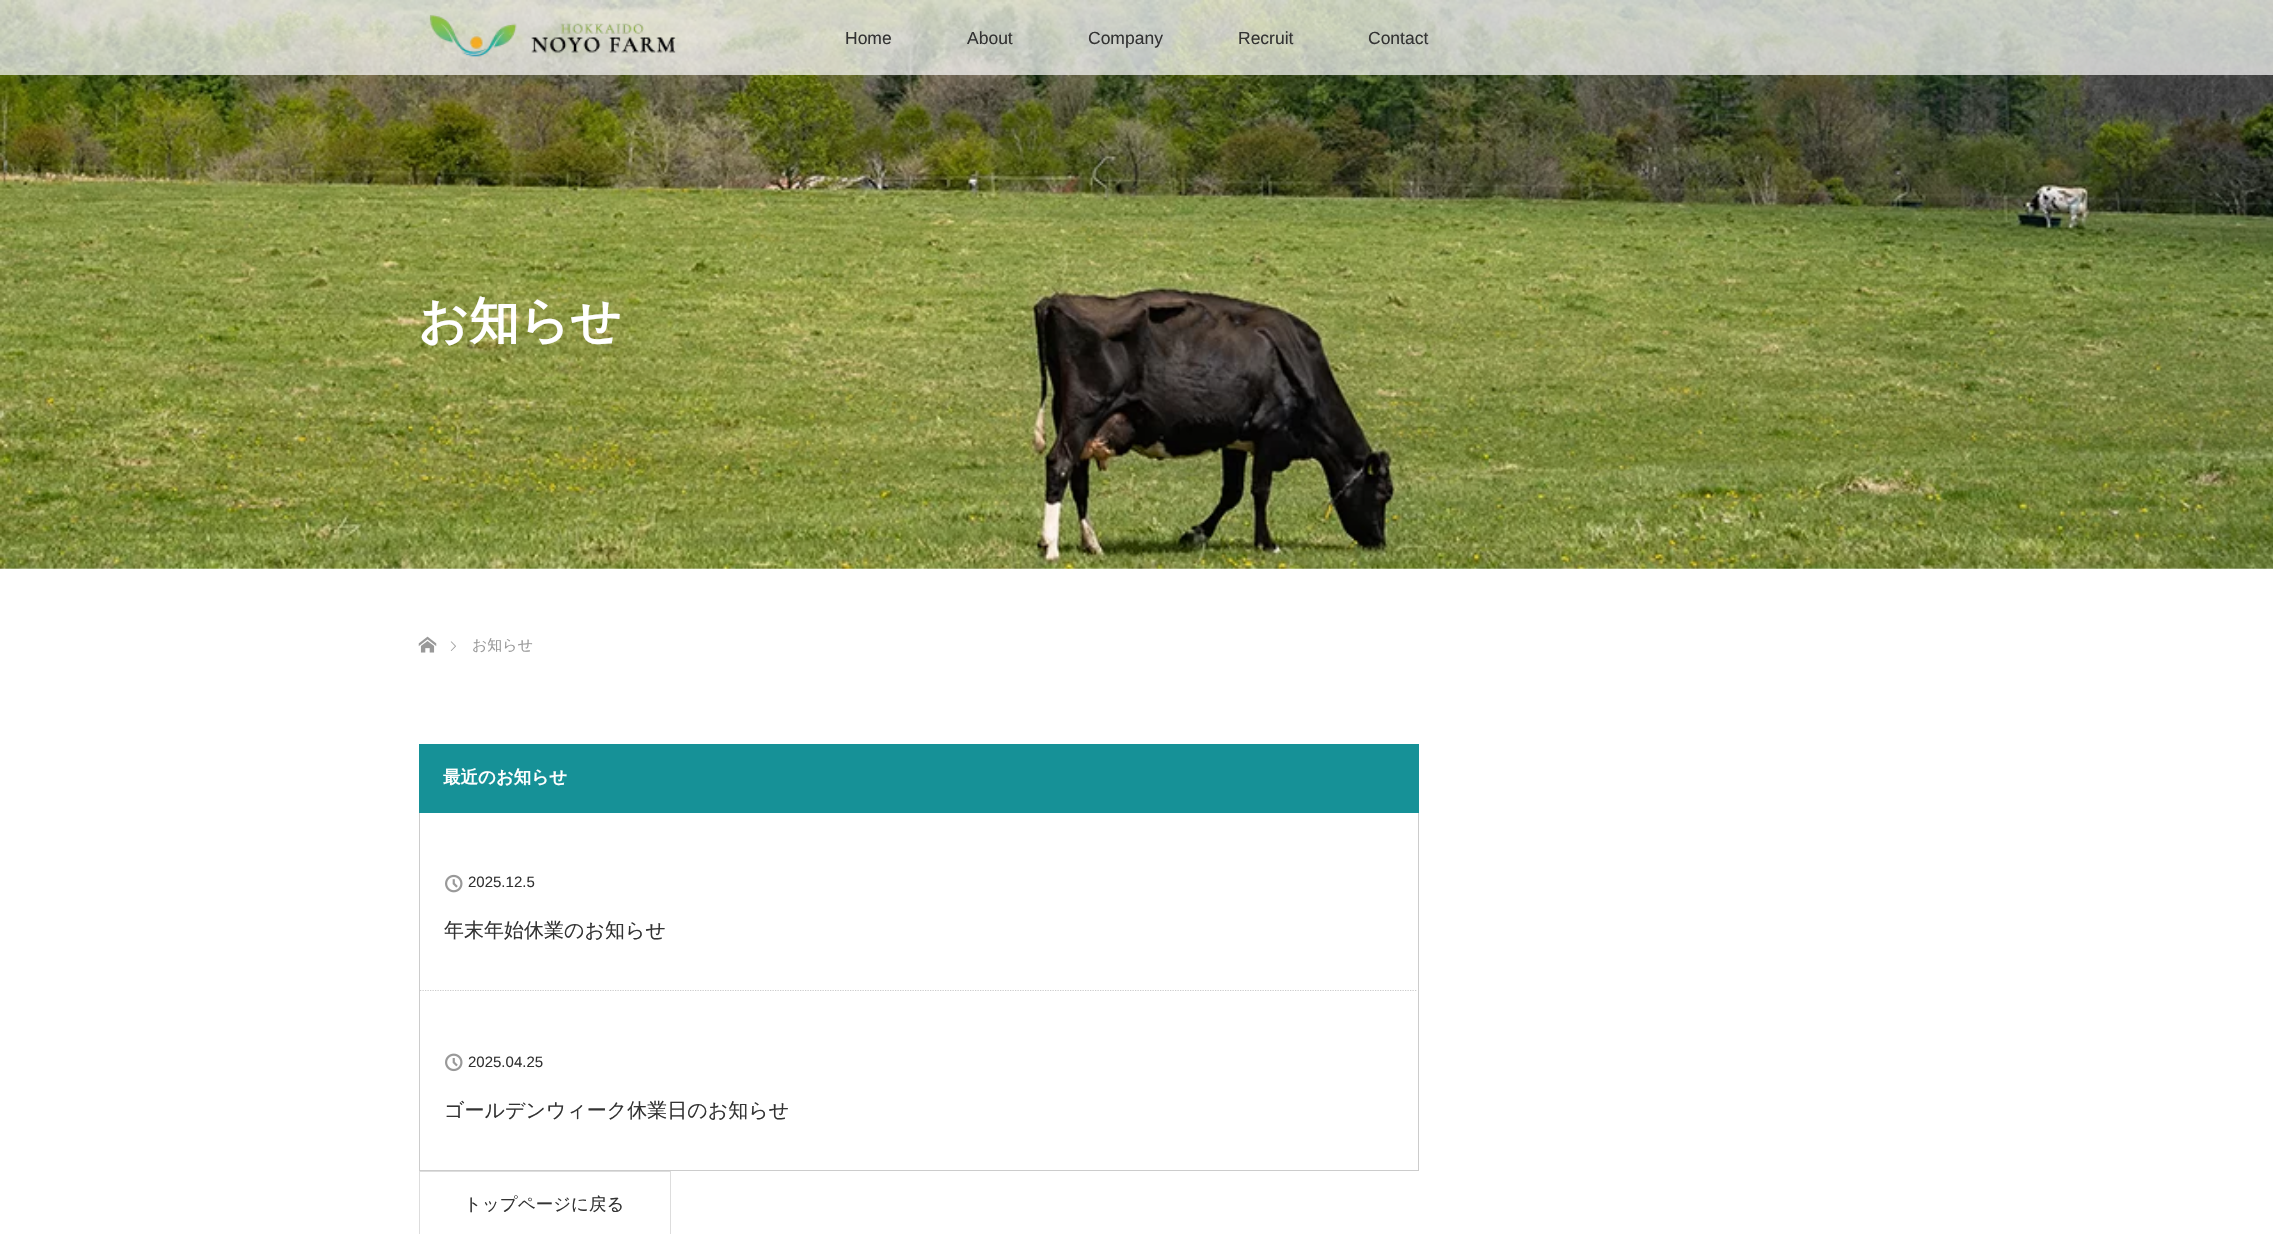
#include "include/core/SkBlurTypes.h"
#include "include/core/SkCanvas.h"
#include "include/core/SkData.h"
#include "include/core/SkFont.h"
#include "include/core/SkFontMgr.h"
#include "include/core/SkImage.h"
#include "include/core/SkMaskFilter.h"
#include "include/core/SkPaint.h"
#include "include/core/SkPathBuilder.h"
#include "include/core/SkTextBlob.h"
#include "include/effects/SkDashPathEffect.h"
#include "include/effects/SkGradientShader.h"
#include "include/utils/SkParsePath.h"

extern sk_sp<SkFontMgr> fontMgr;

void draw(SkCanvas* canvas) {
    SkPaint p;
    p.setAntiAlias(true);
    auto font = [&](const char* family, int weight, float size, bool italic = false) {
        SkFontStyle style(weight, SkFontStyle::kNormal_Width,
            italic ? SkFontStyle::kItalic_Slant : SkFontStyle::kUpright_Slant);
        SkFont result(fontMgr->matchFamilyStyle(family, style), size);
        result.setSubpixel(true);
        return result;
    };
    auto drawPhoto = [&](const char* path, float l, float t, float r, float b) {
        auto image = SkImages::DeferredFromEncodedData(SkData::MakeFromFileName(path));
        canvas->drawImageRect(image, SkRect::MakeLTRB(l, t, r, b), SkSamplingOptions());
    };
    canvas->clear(0xFFFFFFFF);
    drawPhoto("media/2.png", 0, 0, 2273, 569);
    p.setColor(0xB3FFFFFF);
    canvas->drawRect(SkRect::MakeLTRB(0, 0, 2273, 75), p);
    drawPhoto("media/1.png", 429, 14, 676, 57);
    auto font1 = font("Liberation Sans", 400, 17.5f);
    p.setColor(0xFF333333);
    {
        const struct { const char* s; float x, y; } items[] = {
            {"Home", 845, 44},
            {"About", 967, 44},
            {"Company", 1088, 44},
            {"Recruit", 1238, 44},
            {"Contact", 1368, 44},
        };
        for (auto [s, x, y] : items) {
            canvas->drawString(s, x, y, font1, p);
        }
    }
    auto font2 = font("WenQuanYi Zen Hei", 700, 50);
    p.setColor(0xFFFFFFFF);
    canvas->drawString("お知らせ", 418, 338, font2, p);
    drawPhoto("media/3.png", 418, 636, 437, 653);
    drawPhoto("media/4.png", 450, 641, 456, 651);
    auto font3 = font("WenQuanYi Zen Hei", 500, 15);
    p.setColor(0xFF999999);
    canvas->drawString("お知らせ", 472, 650, font3, p);
    p.setColor(0xFF169197);
    canvas->drawRect(SkRect::MakeLTRB(419, 744, 1419, 813), p);
    auto font4 = font("WenQuanYi Zen Hei", 700, 17.5f);
    p.setColor(0xFFFFFFFF);
    canvas->drawString("最近のお知らせ", 443, 783, font4, p);
    {
        const struct { float l, t, r, b; SkColor color; } items[] = {
            {1418, 813, 1419, 1171, 0xFFCCCCCC},
            {419, 1170, 1419, 1171, 0xFFCCCCCC},
            {419, 813, 420, 1171, 0xFFCCCCCC},
        };
        for (auto [l, t, r, b, color] : items) {
            p.setColor(color);
            canvas->drawRect(SkRect::MakeLTRB(l, t, r, b), p);
        }
    }
    p.setStyle(SkPaint::kStroke_Style);
    p.setStrokeWidth(1.2f);
    p.setPathEffect(SkDashPathEffect::Make({{1.25f, 1.25f}}, 0));
    canvas->drawPath(SkPathBuilder().moveTo(420, 990.5f).lineTo(1417.5f, 990.5f).detach(), p);
    p.setPathEffect(nullptr);
    drawPhoto("media/5.png", 445, 874, 463, 893);
    auto font5 = font("Liberation Sans", 400, 15);
    p.setStyle(SkPaint::kFill_Style);
    p.setColor(0xFF333333);
    canvas->drawString("2025.12.5", 468, 887, font5, p);
    auto font6 = font("WenQuanYi Zen Hei", 500, 20);
    canvas->drawString("年末年始休業のお知らせ", 444, 937, font6, p);
    drawPhoto("media/6.png", 445, 1053, 463, 1072);
    canvas->drawString("2025.04.25", 468, 1067, font5, p);
    canvas->drawString("ゴールデンウィーク休業日のお知らせ", 444, 1117, font6, p);
    p.setStyle(SkPaint::kStroke_Style);
    p.setStrokeWidth(1);
    p.setColor(0xFFDDDDDD);
    canvas->drawRect(SkRect::MakeLTRB(419.5f, 1171.5f, 670.5f, 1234.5f), p);
    auto font7 = font("WenQuanYi Zen Hei", 500, 17.5f);
    p.setStyle(SkPaint::kFill_Style);
    p.setColor(0xFF333333);
    canvas->drawString("トップページに戻る", 464, 1210, font7, p);
}
